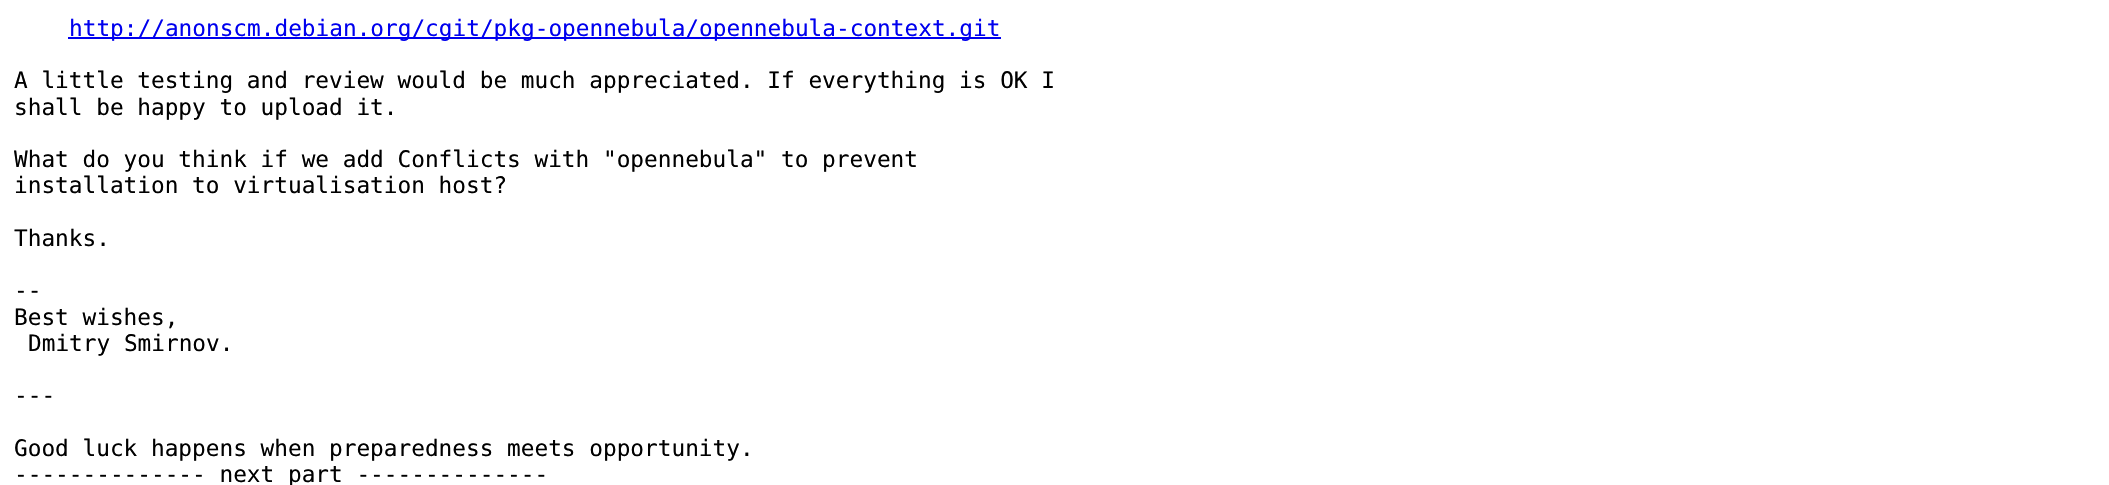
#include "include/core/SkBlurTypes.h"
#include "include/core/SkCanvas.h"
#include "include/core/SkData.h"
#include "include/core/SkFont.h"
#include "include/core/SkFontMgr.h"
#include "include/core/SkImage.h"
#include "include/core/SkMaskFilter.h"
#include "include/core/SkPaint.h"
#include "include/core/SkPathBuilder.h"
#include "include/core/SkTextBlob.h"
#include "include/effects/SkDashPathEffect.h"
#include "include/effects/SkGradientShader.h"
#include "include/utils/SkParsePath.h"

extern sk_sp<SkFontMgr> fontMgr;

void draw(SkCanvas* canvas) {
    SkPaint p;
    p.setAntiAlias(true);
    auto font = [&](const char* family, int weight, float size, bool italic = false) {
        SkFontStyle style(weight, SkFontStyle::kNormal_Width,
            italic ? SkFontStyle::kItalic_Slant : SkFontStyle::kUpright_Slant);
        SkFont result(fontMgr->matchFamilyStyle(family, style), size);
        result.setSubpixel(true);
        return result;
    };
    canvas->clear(0xFFFFFFFF);
    p.setColor(0xFF0000EE);
    canvas->drawRect(SkRect::MakeLTRB(68, 37, 1001, 39), p);
    auto font1 = font("DejaVu Sans Mono", 400, 22.75f);
    canvas->drawString("http://anonscm.debian.org/cgit/pkg-opennebula/opennebula-context.git", 69, 36, font1, p);
    p.setColor(0xFF000000);
    {
        const struct { const char* s; float x, y; } items[] = {
            {"A little testing and review would be much appreciated. If everything is OK I", 14, 88},
            {"shall be happy to upload it.", 14, 115},
            {"What do you think if we add Conflicts with \"opennebula\" to prevent", 14, 167},
            {"installation to virtualisation host?", 14, 193},
            {"Thanks.", 14, 246},
            {"--", 14, 298},
            {"Best wishes,", 14, 325},
            {"Dmitry Smirnov.", 28, 351},
            {"---", 14, 403},
            {"Good luck happens when preparedness meets opportunity.", 14, 456},
            {"-------------- next part --------------", 14, 482},
        };
        for (auto [s, x, y] : items) {
            canvas->drawString(s, x, y, font1, p);
        }
    }
}
